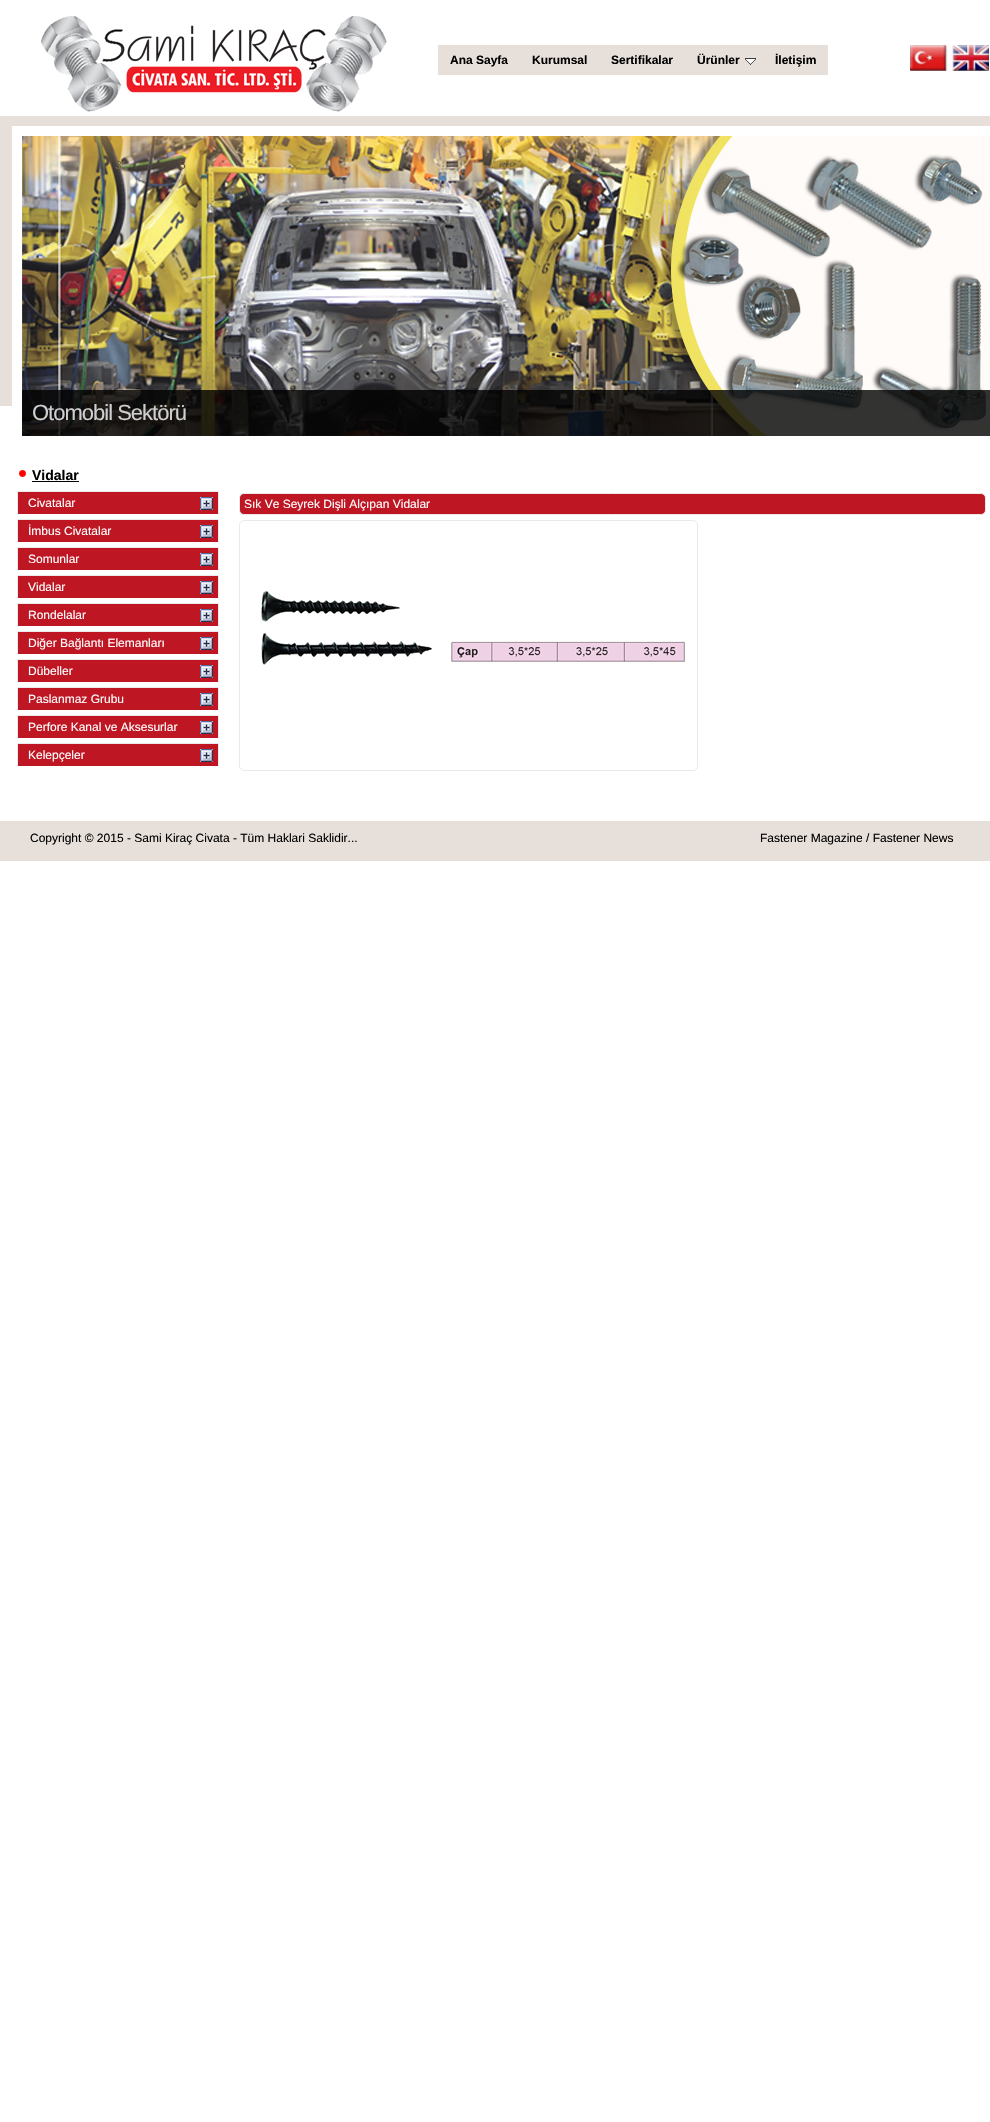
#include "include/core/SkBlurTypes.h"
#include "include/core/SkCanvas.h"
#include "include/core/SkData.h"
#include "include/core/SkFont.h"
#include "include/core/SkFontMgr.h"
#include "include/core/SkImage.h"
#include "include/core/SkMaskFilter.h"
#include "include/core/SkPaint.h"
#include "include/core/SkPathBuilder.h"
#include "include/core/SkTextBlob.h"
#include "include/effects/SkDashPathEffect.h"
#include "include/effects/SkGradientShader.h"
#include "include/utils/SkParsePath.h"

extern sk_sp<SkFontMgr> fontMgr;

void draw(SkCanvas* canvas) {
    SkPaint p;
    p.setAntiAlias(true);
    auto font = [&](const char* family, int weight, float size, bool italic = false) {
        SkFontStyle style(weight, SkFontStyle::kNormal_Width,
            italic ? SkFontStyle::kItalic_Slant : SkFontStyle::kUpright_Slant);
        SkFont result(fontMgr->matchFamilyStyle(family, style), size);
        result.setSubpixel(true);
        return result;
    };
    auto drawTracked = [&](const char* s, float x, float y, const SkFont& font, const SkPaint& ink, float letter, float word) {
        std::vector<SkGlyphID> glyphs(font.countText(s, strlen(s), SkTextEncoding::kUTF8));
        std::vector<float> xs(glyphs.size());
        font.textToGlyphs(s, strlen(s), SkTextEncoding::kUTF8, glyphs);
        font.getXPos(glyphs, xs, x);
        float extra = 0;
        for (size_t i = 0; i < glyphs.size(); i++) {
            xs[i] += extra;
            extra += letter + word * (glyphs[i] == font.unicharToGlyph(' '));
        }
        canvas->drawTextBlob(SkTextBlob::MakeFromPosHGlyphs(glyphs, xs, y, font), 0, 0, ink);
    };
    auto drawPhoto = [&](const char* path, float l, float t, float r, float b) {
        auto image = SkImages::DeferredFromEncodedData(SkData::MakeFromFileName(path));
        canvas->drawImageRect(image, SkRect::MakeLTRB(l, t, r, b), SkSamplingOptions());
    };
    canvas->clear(0xFFFFFFFF);
    drawPhoto("media/1.png", 41, 16, 387, 112);
    p.setColor(0xFFE7DFD9);
    canvas->drawRect(SkRect::MakeLTRB(438, 45, 685, 75), p);
    auto font1 = font("Liberation Sans", 700, 12);
    p.setColor(0xFF000000);
    {
        const struct { const char* s; float x, y; } items[] = {
            {"Ana Sayfa", 450, 64},
            {"Kurumsal", 532, 64},
            {"Sertifikalar", 611, 64},
        };
        for (auto [s, x, y] : items) {
            canvas->drawString(s, x, y, font1, p);
        }
    }
    p.setColor(0xFFE7DFD9);
    canvas->drawRect(SkRect::MakeLTRB(685, 45, 828, 75), p);
    p.setColor(0xFF000000);
    canvas->drawString("Ürünler", 697, 64, font1, p);
    drawPhoto("media/2.png", 745, 58, 756, 65);
    canvas->drawString("İletişim", 775, 64, font1, p);
    drawPhoto("media/3.png", 910, 45, 989, 71);
    p.setColor(0xFFE7DFD9);
    canvas->drawRect(SkRect::MakeLTRB(0, 116, 990, 406), p);
    p.setColor(0xFFFFFFFF);
    canvas->drawRect(SkRect::MakeLTRB(12, 126, 990, 406), p);
    drawPhoto("media/4.png", 22, 136, 990, 436);
    auto font2 = font("Liberation Sans", 400, 12);
    p.setColor(0xFF6E623F);
    canvas->drawString("3", 115, 169, font2, p);
    p.setColor(0xFF64563C);
    canvas->drawString("5", 179, 169, font2, p);
    p.setColor(0xCC000000);
    canvas->drawRect(SkRect::MakeLTRB(22, 390, 990, 436), p);
    auto font3 = font("Liberation Sans", 400, 22);
    p.setColor(0xFFD0CFCF);
    drawTracked("Otomobil Sektörü", 32, 420, font3, p, -1, 0);
    drawPhoto("media/5.png", 19, 470, 26, 477);
    auto font4 = font("Liberation Sans", 700, 14);
    p.setColor(0xFF000000);
    canvas->drawString("Vidalar", 32, 480, font4, p);
    {
        const struct { float l, t, r, b; SkColor color; } items[] = {
            {32, 481, 79, 482, 0xFF000000},
            {17, 491, 219, 492, 0xFFEAEAEA},
            {218, 491, 219, 514, 0xFFEAEAEA},
            {17, 491, 18, 514, 0xFFEAEAEA},
            {18, 492, 218, 514, 0xFFBE1623},
        };
        for (auto [l, t, r, b, color] : items) {
            p.setColor(color);
            canvas->drawRect(SkRect::MakeLTRB(l, t, r, b), p);
        }
    }
    p.setColor(0xFFFFFFFF);
    canvas->drawString("Civatalar", 28, 507, font2, p);
    drawPhoto("media/6.png", 200, 497, 213, 510);
    {
        const struct { float l, t, r, b; SkColor color; } items[] = {
            {17, 519, 219, 520, 0xFFEAEAEA},
            {218, 519, 219, 542, 0xFFEAEAEA},
            {17, 519, 18, 542, 0xFFEAEAEA},
            {18, 520, 218, 542, 0xFFBE1623},
        };
        for (auto [l, t, r, b, color] : items) {
            p.setColor(color);
            canvas->drawRect(SkRect::MakeLTRB(l, t, r, b), p);
        }
    }
    p.setColor(0xFFFFFFFF);
    canvas->drawString("İmbus Civatalar", 28, 535, font2, p);
    drawPhoto("media/6.png", 200, 525, 213, 538);
    {
        const struct { float l, t, r, b; SkColor color; } items[] = {
            {17, 547, 219, 548, 0xFFEAEAEA},
            {218, 547, 219, 570, 0xFFEAEAEA},
            {17, 547, 18, 570, 0xFFEAEAEA},
            {18, 548, 218, 570, 0xFFBE1623},
        };
        for (auto [l, t, r, b, color] : items) {
            p.setColor(color);
            canvas->drawRect(SkRect::MakeLTRB(l, t, r, b), p);
        }
    }
    p.setColor(0xFFFFFFFF);
    canvas->drawString("Somunlar", 28, 563, font2, p);
    drawPhoto("media/6.png", 200, 553, 213, 566);
    {
        const struct { float l, t, r, b; SkColor color; } items[] = {
            {17, 575, 219, 576, 0xFFEAEAEA},
            {218, 575, 219, 598, 0xFFEAEAEA},
            {17, 575, 18, 598, 0xFFEAEAEA},
            {18, 576, 218, 598, 0xFFBE1623},
        };
        for (auto [l, t, r, b, color] : items) {
            p.setColor(color);
            canvas->drawRect(SkRect::MakeLTRB(l, t, r, b), p);
        }
    }
    p.setColor(0xFFFFFFFF);
    canvas->drawString("Vidalar", 28, 591, font2, p);
    drawPhoto("media/6.png", 200, 581, 213, 594);
    {
        const struct { float l, t, r, b; SkColor color; } items[] = {
            {17, 603, 219, 604, 0xFFEAEAEA},
            {218, 603, 219, 626, 0xFFEAEAEA},
            {17, 603, 18, 626, 0xFFEAEAEA},
            {18, 604, 218, 626, 0xFFBE1623},
        };
        for (auto [l, t, r, b, color] : items) {
            p.setColor(color);
            canvas->drawRect(SkRect::MakeLTRB(l, t, r, b), p);
        }
    }
    p.setColor(0xFFFFFFFF);
    canvas->drawString("Rondelalar", 28, 619, font2, p);
    drawPhoto("media/6.png", 200, 609, 213, 622);
    {
        const struct { float l, t, r, b; SkColor color; } items[] = {
            {17, 631, 219, 632, 0xFFEAEAEA},
            {218, 631, 219, 654, 0xFFEAEAEA},
            {17, 631, 18, 654, 0xFFEAEAEA},
            {18, 632, 218, 654, 0xFFBE1623},
        };
        for (auto [l, t, r, b, color] : items) {
            p.setColor(color);
            canvas->drawRect(SkRect::MakeLTRB(l, t, r, b), p);
        }
    }
    p.setColor(0xFFFFFFFF);
    canvas->drawString("Diğer Bağlantı Elemanları", 28, 647, font2, p);
    drawPhoto("media/6.png", 200, 637, 213, 650);
    {
        const struct { float l, t, r, b; SkColor color; } items[] = {
            {17, 659, 219, 660, 0xFFEAEAEA},
            {218, 659, 219, 682, 0xFFEAEAEA},
            {17, 659, 18, 682, 0xFFEAEAEA},
            {18, 660, 218, 682, 0xFFBE1623},
        };
        for (auto [l, t, r, b, color] : items) {
            p.setColor(color);
            canvas->drawRect(SkRect::MakeLTRB(l, t, r, b), p);
        }
    }
    p.setColor(0xFFFFFFFF);
    canvas->drawString("Dübeller", 28, 675, font2, p);
    drawPhoto("media/6.png", 200, 665, 213, 678);
    {
        const struct { float l, t, r, b; SkColor color; } items[] = {
            {17, 687, 219, 688, 0xFFEAEAEA},
            {218, 687, 219, 710, 0xFFEAEAEA},
            {17, 687, 18, 710, 0xFFEAEAEA},
            {18, 688, 218, 710, 0xFFBE1623},
        };
        for (auto [l, t, r, b, color] : items) {
            p.setColor(color);
            canvas->drawRect(SkRect::MakeLTRB(l, t, r, b), p);
        }
    }
    p.setColor(0xFFFFFFFF);
    canvas->drawString("Paslanmaz Grubu", 28, 703, font2, p);
    drawPhoto("media/6.png", 200, 693, 213, 706);
    {
        const struct { float l, t, r, b; SkColor color; } items[] = {
            {17, 715, 219, 716, 0xFFEAEAEA},
            {218, 715, 219, 738, 0xFFEAEAEA},
            {17, 715, 18, 738, 0xFFEAEAEA},
            {18, 716, 218, 738, 0xFFBE1623},
        };
        for (auto [l, t, r, b, color] : items) {
            p.setColor(color);
            canvas->drawRect(SkRect::MakeLTRB(l, t, r, b), p);
        }
    }
    p.setColor(0xFFFFFFFF);
    canvas->drawString("Perfore Kanal ve Aksesurlar", 28, 731, font2, p);
    drawPhoto("media/6.png", 200, 721, 213, 734);
    {
        const struct { float l, t, r, b; SkColor color; } items[] = {
            {17, 743, 219, 744, 0xFFEAEAEA},
            {218, 743, 219, 766, 0xFFEAEAEA},
            {17, 743, 18, 766, 0xFFEAEAEA},
            {18, 744, 218, 766, 0xFFBE1623},
        };
        for (auto [l, t, r, b, color] : items) {
            p.setColor(color);
            canvas->drawRect(SkRect::MakeLTRB(l, t, r, b), p);
        }
    }
    p.setColor(0xFFFFFFFF);
    canvas->drawString("Kelepçeler", 28, 759, font2, p);
    drawPhoto("media/6.png", 200, 749, 213, 762);
    p.setColor(0xFFBE1623);
    canvas->drawRoundRect(SkRect::MakeLTRB(239.5f, 493.5f, 985.5f, 514.5f), 4.5f, 4.5f, p);
    p.setStyle(SkPaint::kStroke_Style);
    p.setStrokeWidth(1);
    p.setColor(0xFFEAEAEA);
    canvas->drawRoundRect(SkRect::MakeLTRB(239.5f, 493.5f, 985.5f, 514.5f), 4.5f, 4.5f, p);
    p.setStyle(SkPaint::kFill_Style);
    p.setColor(0xFFFFFFFF);
    canvas->drawString("Sık Ve Seyrek Dişli Alçıpan Vidalar", 244, 508, font2, p);
    p.setStyle(SkPaint::kStroke_Style);
    p.setColor(0xFFEAEAEA);
    canvas->drawRoundRect(SkRect::MakeLTRB(239.5f, 520.5f, 697.5f, 770.5f), 4.5f, 4.5f, p);
    drawPhoto("media/7.png", 260, 591, 432, 665);
    drawPhoto("media/8.png", 451, 641, 685, 662);
    p.setStyle(SkPaint::kFill_Style);
    p.setColor(0xFFE7DFD9);
    canvas->drawRect(SkRect::MakeLTRB(0, 821, 990, 861), p);
    p.setColor(0xFF000000);
    canvas->drawString("Copyright © 2015 - Sami Kiraç Civata - Tüm Haklari Saklidir...", 30, 842, font2, p);
    canvas->drawString("Fastener Magazine / Fastener News", 760, 842, font2, p);
}
